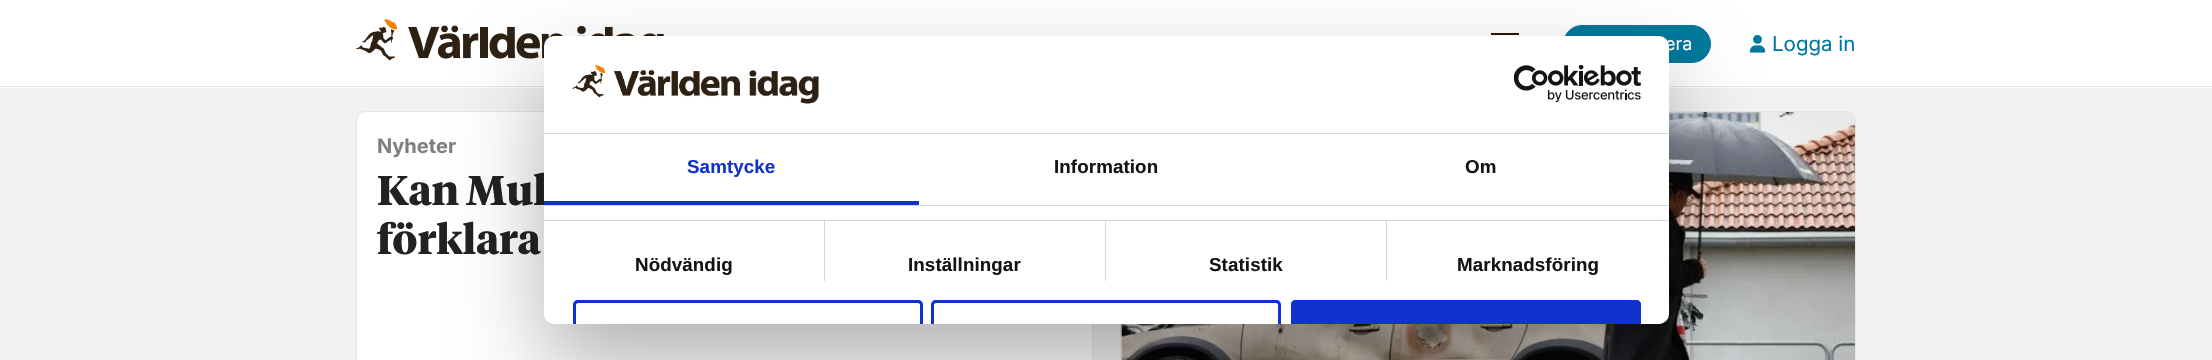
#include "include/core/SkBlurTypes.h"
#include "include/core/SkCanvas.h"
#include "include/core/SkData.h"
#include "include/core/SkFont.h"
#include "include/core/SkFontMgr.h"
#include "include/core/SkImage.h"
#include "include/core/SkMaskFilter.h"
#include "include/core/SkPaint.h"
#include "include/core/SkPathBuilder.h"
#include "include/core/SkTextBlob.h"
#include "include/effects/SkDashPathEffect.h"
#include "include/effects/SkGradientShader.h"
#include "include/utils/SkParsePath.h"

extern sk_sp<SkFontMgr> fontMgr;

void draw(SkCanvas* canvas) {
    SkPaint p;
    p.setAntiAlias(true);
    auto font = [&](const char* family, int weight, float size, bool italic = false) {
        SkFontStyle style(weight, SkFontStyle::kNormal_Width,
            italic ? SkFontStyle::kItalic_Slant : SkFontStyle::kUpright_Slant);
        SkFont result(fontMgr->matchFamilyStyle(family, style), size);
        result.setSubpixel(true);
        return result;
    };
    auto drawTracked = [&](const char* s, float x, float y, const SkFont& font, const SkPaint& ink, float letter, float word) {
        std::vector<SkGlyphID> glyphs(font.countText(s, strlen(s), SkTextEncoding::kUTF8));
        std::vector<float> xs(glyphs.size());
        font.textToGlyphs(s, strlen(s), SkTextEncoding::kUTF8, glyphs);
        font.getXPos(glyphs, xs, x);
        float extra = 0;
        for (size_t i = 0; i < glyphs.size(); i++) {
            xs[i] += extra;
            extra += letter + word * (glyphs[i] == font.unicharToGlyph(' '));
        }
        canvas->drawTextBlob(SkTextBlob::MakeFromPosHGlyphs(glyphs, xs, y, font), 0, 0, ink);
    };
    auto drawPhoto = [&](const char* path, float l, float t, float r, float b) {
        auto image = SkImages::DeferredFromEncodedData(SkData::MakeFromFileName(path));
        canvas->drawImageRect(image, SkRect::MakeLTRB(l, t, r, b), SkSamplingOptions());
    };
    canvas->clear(0xFFF2F2F2);
    p.setColor(0xFFFFFFFF);
    canvas->drawRect(SkRect::MakeLTRB(0, 0, 2212, 88), p);
    p.setColor(0xFFE5E5E5);
    canvas->drawRect(SkRect::MakeLTRB(0, 86, 2212, 87), p);
    drawPhoto("media/1.png", 356, 19, 664, 61);
    p.setColor(0xFF32150D);
    canvas->drawRect(SkRect::MakeLTRB(1491, 33, 1519, 35), p);
    p.setColor(0xFF00789B);
    canvas->drawRoundRect(SkRect::MakeLTRB(1563.5f, 25.5f, 1710.5f, 62.5f), 18.5f, 18.5f, p);
    p.setStyle(SkPaint::kStroke_Style);
    p.setStrokeWidth(1);
    canvas->drawRoundRect(SkRect::MakeLTRB(1563.5f, 25.5f, 1710.5f, 62.5f), 18.5f, 18.5f, p);
    auto font1 = font("Inter", 400, 18);
    p.setStyle(SkPaint::kFill_Style);
    p.setColor(0xFFFFFFFF);
    canvas->drawString("era", 1665, 50, font1, p);
    drawPhoto("media/2.png", 1749, 35, 1766, 53);
    auto font2 = font("Inter", 400, 20.5f);
    p.setColor(0xFF00789B);
    canvas->drawString("Logga in", 1772, 51, font2, p);
    p.setColor(0xFFFFFFFF);
    canvas->drawRoundRect(SkRect::MakeLTRB(356.5f, 111.5f, 1092.5f, 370.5f), 9.5f, 9.5f, p);
    p.setStyle(SkPaint::kStroke_Style);
    p.setColor(0xFFE5E5E5);
    canvas->drawRoundRect(SkRect::MakeLTRB(356.5f, 111.5f, 1092.5f, 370.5f), 9.5f, 9.5f, p);
    auto font3 = font("Inter", 700, 20);
    p.setStyle(SkPaint::kFill_Style);
    p.setColor(0xFF7F7F7F);
    canvas->drawString("Nyheter", 377, 153, font3, p);
    auto font4 = font("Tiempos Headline", 700, 41.25f);
    p.setColor(0xFF222222);
    canvas->drawString("Kan Muh", 377, 205, font4, p);
    canvas->drawString("förklara", 377, 254, font4, p);
    p.setColor(0xFFFFFFFF);
    canvas->drawRoundRect(SkRect::MakeLTRB(1120.5f, 111.5f, 1855.5f, 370.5f), 9.5f, 9.5f, p);
    p.setStyle(SkPaint::kStroke_Style);
    p.setColor(0xFFE5E5E5);
    canvas->drawRoundRect(SkRect::MakeLTRB(1120.5f, 111.5f, 1855.5f, 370.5f), 9.5f, 9.5f, p);
    drawPhoto("media/3.png", 1121, 112, 1855, 360);
    p.setStyle(SkPaint::kFill_Style);
    p.setColor(0x4D000000);
    p.setMaskFilter(SkMaskFilter::MakeBlur(kNormal_SkBlurStyle, 42.5f));
    canvas->drawRoundRect(SkRect::MakeLTRB(544, 76, 1669, 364), 10, 10, p);
    p.setMaskFilter(nullptr);
    p.setColor(0xFFFFFFFF);
    canvas->drawRoundRect(SkRect::MakeLTRB(544, 36, 1669, 324), 10, 10, p);
    p.setColor(0xFFD6D6D6);
    canvas->drawRect(SkRect::MakeLTRB(544, 133, 1669, 134), p);
    drawPhoto("media/4.png", 572, 64, 819, 104);
    drawPhoto("media/5.png", 1514, 65, 1641, 103);
    canvas->drawRect(SkRect::MakeLTRB(544, 205, 1669, 206), p);
    p.setColor(0xFF1032CF);
    canvas->drawRect(SkRect::MakeLTRB(544, 201, 919, 205), p);
    auto font5 = font("Liberation Sans", 700, 18.75f);
    drawTracked("Samtycke", 687, 173, font5, p, 0.1f, 0);
    p.setColor(0xFF141414);
    drawTracked("Information", 1054, 173, font5, p, 0.1f, 0);
    drawTracked("Om", 1465, 173, font5, p, 0.1f, 0);
    p.setColor(0xFFD6D6D6);
    canvas->drawRect(SkRect::MakeLTRB(544, 220, 1669, 221), p);
    canvas->drawRect(SkRect::MakeLTRB(824, 221, 825, 281), p);
    p.setColor(0xFF141414);
    drawTracked("Nödvändig", 635, 271, font5, p, 0.1f, 0);
    p.setColor(0xFFD6D6D6);
    canvas->drawRect(SkRect::MakeLTRB(1105, 221, 1106, 281), p);
    p.setColor(0xFF141414);
    drawTracked("Inställningar", 908, 271, font5, p, 0.1f, 0);
    p.setColor(0xFFD6D6D6);
    canvas->drawRect(SkRect::MakeLTRB(1386, 221, 1387, 281), p);
    p.setColor(0xFF141414);
    drawTracked("Statistik", 1209, 271, font5, p, 0.1f, 0);
    drawTracked("Marknadsföring", 1457, 271, font5, p, 0.1f, 0);
    p.setColor(0xFF1032CF);
    canvas->drawPath(SkPathBuilder().moveTo(578, 300).cubicTo(575, 300, 573, 302, 573, 305).lineTo(573, 324).lineTo(576, 324).lineTo(576, 305).cubicTo(576, 304, 577, 303, 578, 303).lineTo(918, 303).cubicTo(919, 303, 920, 304, 920, 305).lineTo(920, 324).lineTo(923, 324).lineTo(923, 305).cubicTo(923, 302, 921, 300, 918, 300).close().detach(), p);
    canvas->drawPath(SkPathBuilder().moveTo(936, 300).cubicTo(933, 300, 931, 302, 931, 305).lineTo(931, 324).lineTo(934, 324).lineTo(934, 305).cubicTo(934, 304, 935, 303, 936, 303).lineTo(1276, 303).cubicTo(1277, 303, 1278, 304, 1278, 305).lineTo(1278, 324).lineTo(1281, 324).lineTo(1281, 305).cubicTo(1281, 302, 1279, 300, 1276, 300).close().detach(), p);
    canvas->drawPath(SkPathBuilder().moveTo(1296, 300).lineTo(1636, 300).cubicTo(1639, 300, 1641, 302, 1641, 305).lineTo(1641, 324).lineTo(1291, 324).lineTo(1291, 305).cubicTo(1291, 302, 1293, 300, 1296, 300).close().detach(), p);
    canvas->drawPath(SkPathBuilder().moveTo(1296, 300).cubicTo(1293, 300, 1291, 302, 1291, 305).lineTo(1291, 324).lineTo(1294, 324).lineTo(1294, 305).cubicTo(1294, 304, 1295, 303, 1296, 303).lineTo(1636, 303).cubicTo(1637, 303, 1638, 304, 1638, 305).lineTo(1638, 324).lineTo(1641, 324).lineTo(1641, 305).cubicTo(1641, 302, 1639, 300, 1636, 300).close().detach(), p);
    p.setColor(0xFFFFFFFF);
    canvas->drawRect(SkRect::MakeLTRB(1659, 323, 1661, 324), p);
}
